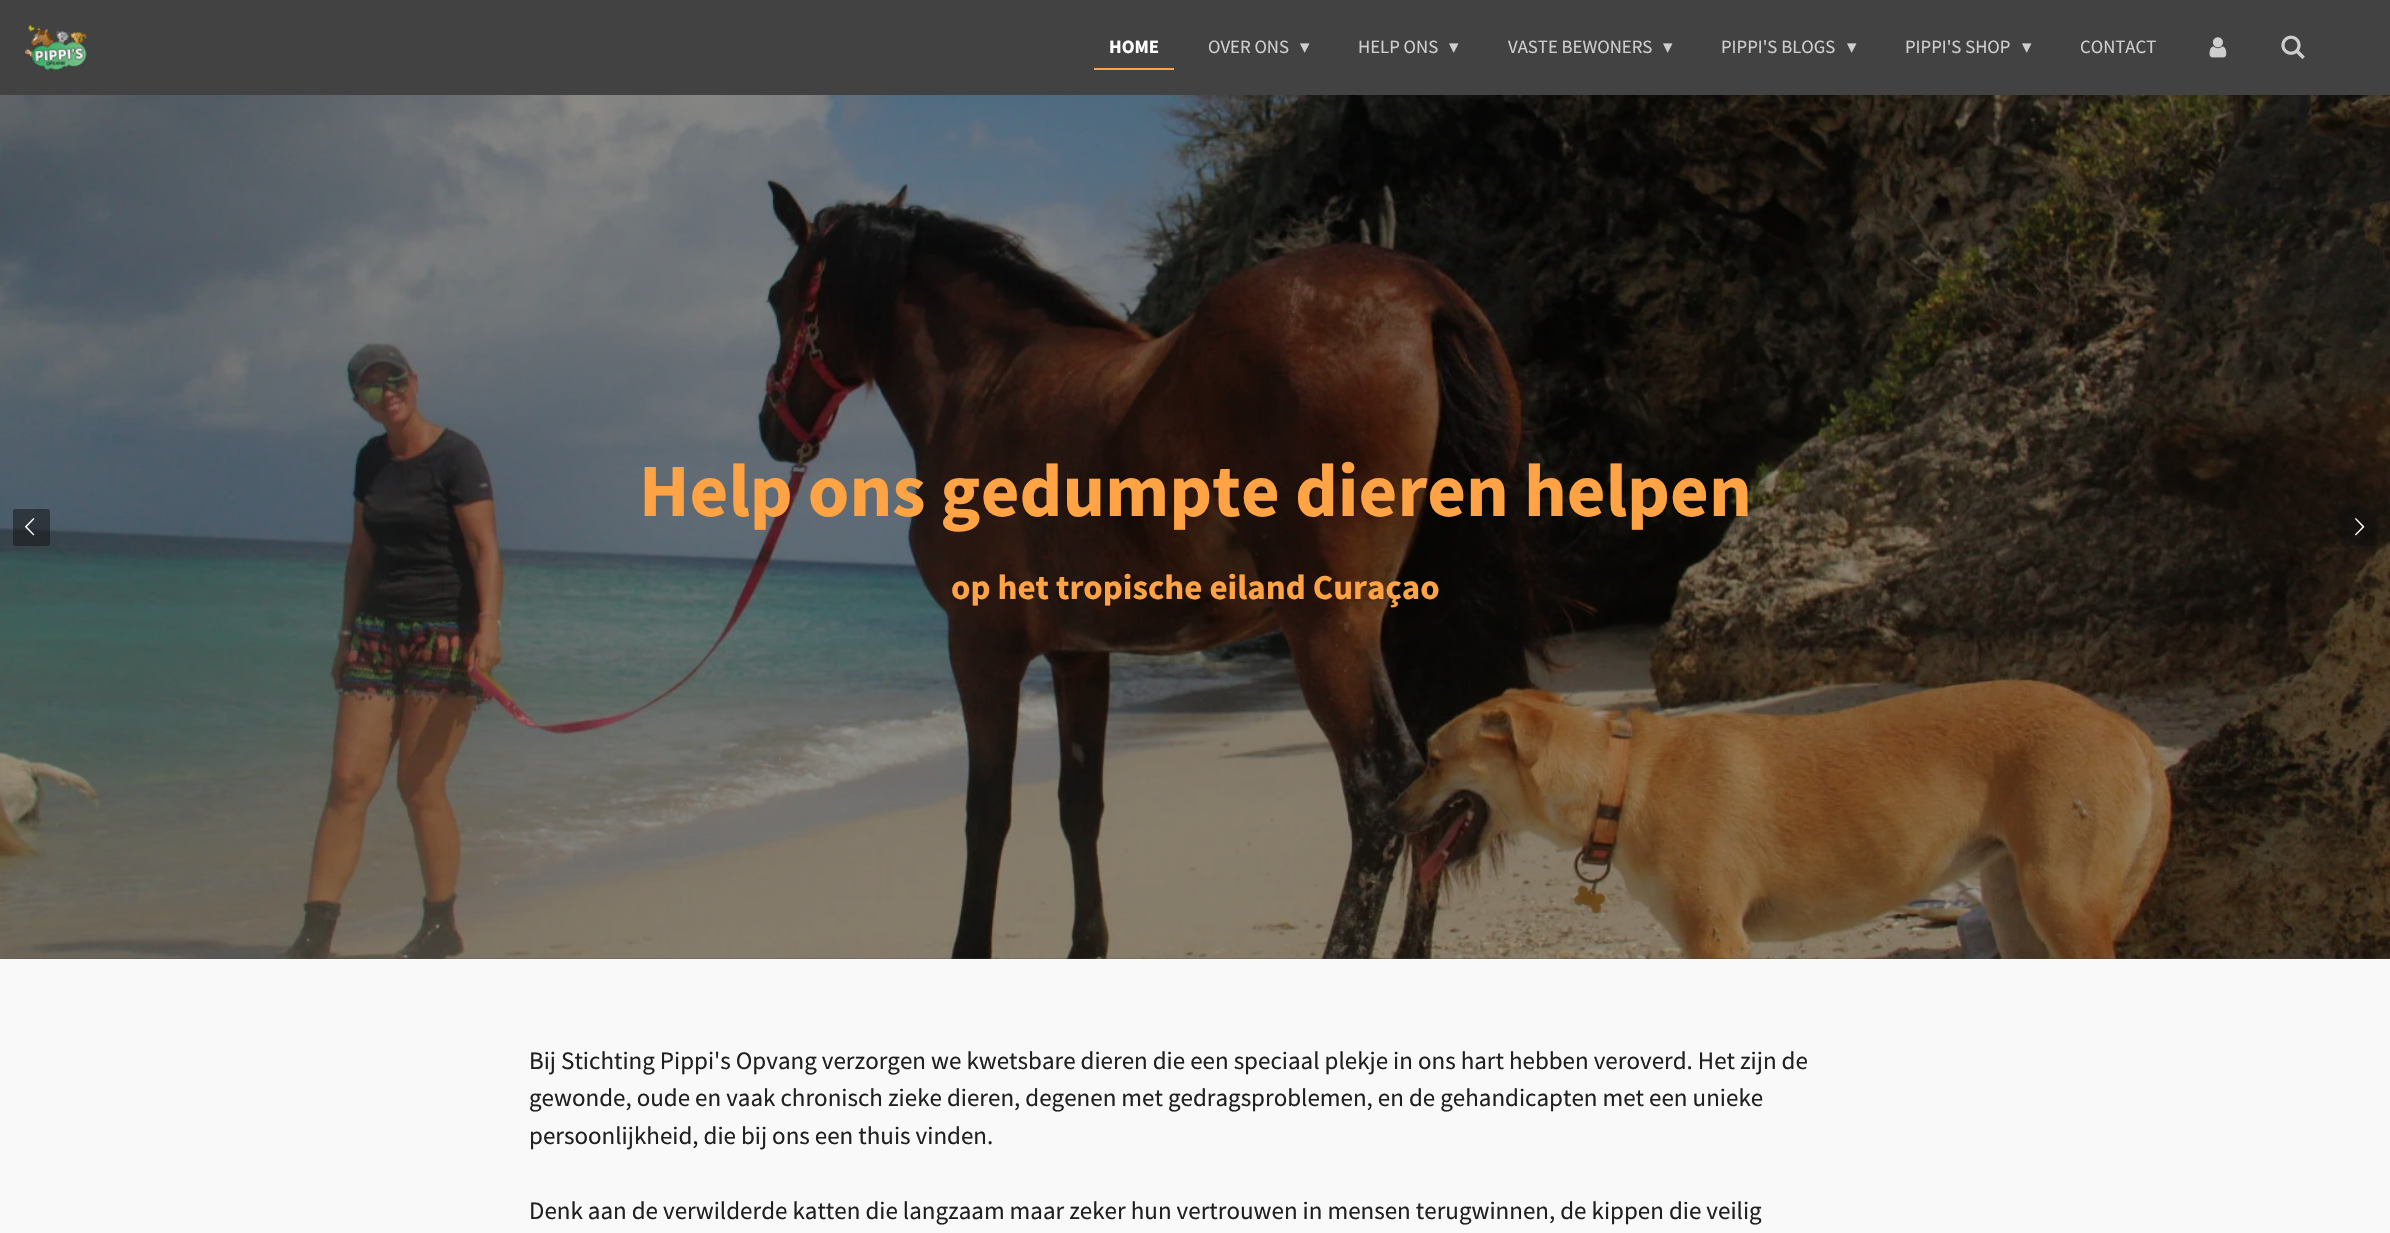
#include "include/core/SkBlurTypes.h"
#include "include/core/SkCanvas.h"
#include "include/core/SkData.h"
#include "include/core/SkFont.h"
#include "include/core/SkFontMgr.h"
#include "include/core/SkImage.h"
#include "include/core/SkMaskFilter.h"
#include "include/core/SkPaint.h"
#include "include/core/SkPathBuilder.h"
#include "include/core/SkTextBlob.h"
#include "include/effects/SkDashPathEffect.h"
#include "include/effects/SkGradientShader.h"
#include "include/utils/SkParsePath.h"

extern sk_sp<SkFontMgr> fontMgr;

void draw(SkCanvas* canvas) {
    SkPaint p;
    p.setAntiAlias(true);
    auto font = [&](const char* family, int weight, float size, bool italic = false) {
        SkFontStyle style(weight, SkFontStyle::kNormal_Width,
            italic ? SkFontStyle::kItalic_Slant : SkFontStyle::kUpright_Slant);
        SkFont result(fontMgr->matchFamilyStyle(family, style), size);
        result.setSubpixel(true);
        return result;
    };
    auto drawPhoto = [&](const char* path, float l, float t, float r, float b) {
        auto image = SkImages::DeferredFromEncodedData(SkData::MakeFromFileName(path));
        canvas->drawImageRect(image, SkRect::MakeLTRB(l, t, r, b), SkSamplingOptions());
    };
    canvas->clear(0xFF424242);
    drawPhoto("media/1.png", 25, 25, 87, 70);
    p.setColor(0xFFFFA344);
    canvas->drawPath(SkPathBuilder().moveTo(1094, 68).lineTo(1094, 70).lineTo(1174, 70).lineTo(1174, 30).lineTo(1174, 68).close().detach(), p);
    auto font1 = font("Source Sans Pro", 700, 18.75f);
    p.setColor(0xFFFFFFFF);
    canvas->drawString("HOME", 1109, 53, font1, p);
    auto font2 = font("Source Sans Pro", 400, 18.75f);
    p.setColor(0xFFCECECE);
    canvas->drawString("OVER ONS", 1208, 53, font2, p);
    auto font3 = font("DejaVu Sans", 400, 18.75f);
    canvas->drawString("▾", 1300, 53, font3, p);
    canvas->drawString("HELP ONS", 1358, 53, font2, p);
    canvas->drawString("▾", 1449, 53, font3, p);
    canvas->drawString("VASTE BEWONERS", 1508, 53, font2, p);
    canvas->drawString("▾", 1663, 53, font3, p);
    canvas->drawString("PIPPI'S BLOGS", 1721, 53, font2, p);
    canvas->drawString("▾", 1847, 53, font3, p);
    canvas->drawString("PIPPI'S SHOP", 1905, 53, font2, p);
    canvas->drawString("▾", 2022, 53, font3, p);
    canvas->drawString("CONTACT", 2080, 53, font2, p);
    drawPhoto("media/2.png", 2209, 37, 2227, 58);
    drawPhoto("media/3.png", 2281, 35, 2305, 59);
    drawPhoto("media/4.png", 0, 95, 2390, 959);
    auto font4 = font("Source Sans Pro", 700, 75);
    p.setColor(0xFFFFA344);
    canvas->drawString("Help ons gedumpte dieren helpen", 639, 516, font4, p);
    auto font5 = font("Source Sans Pro", 700, 35);
    canvas->drawString("op het tropische eiland Curaçao", 951, 599, font5, p);
    p.setColor(0x800F0F0F);
    canvas->drawRoundRect(SkRect::MakeLTRB(13, 509, 50, 546), 2.5f, 2.5f, p);
    drawPhoto("media/5.png", 25, 518, 35, 536);
    canvas->drawRoundRect(SkRect::MakeLTRB(2340, 509, 2378, 546), 2.5f, 2.5f, p);
    drawPhoto("media/6.png", 2355, 518, 2365, 536);
    p.setColor(0xFFF9F9F9);
    canvas->drawRect(SkRect::MakeLTRB(0, 959, 2390, 1233), p);
    auto font6 = font("Source Sans Pro", 400, 25);
    p.setColor(0xFF202020);
    {
        const struct { const char* s; float x, y; } items[] = {
            {"Bij Stichting Pippi's Opvang verzorgen we kwetsbare dieren die een speciaal plekje in ons hart hebben veroverd. Het zijn de", 529, 1069},
            {"gewonde, oude en vaak chronisch zieke dieren, degenen met gedragsproblemen, en de gehandicapten met een unieke", 529, 1106},
            {"persoonlijkheid, die bij ons een thuis vinden.", 529, 1144},
            {"Denk aan de verwilderde katten die langzaam maar zeker hun vertrouwen in mensen terugwinnen, de kippen die veilig", 529, 1219},
        };
        for (auto [s, x, y] : items) {
            canvas->drawString(s, x, y, font6, p);
        }
    }
}
